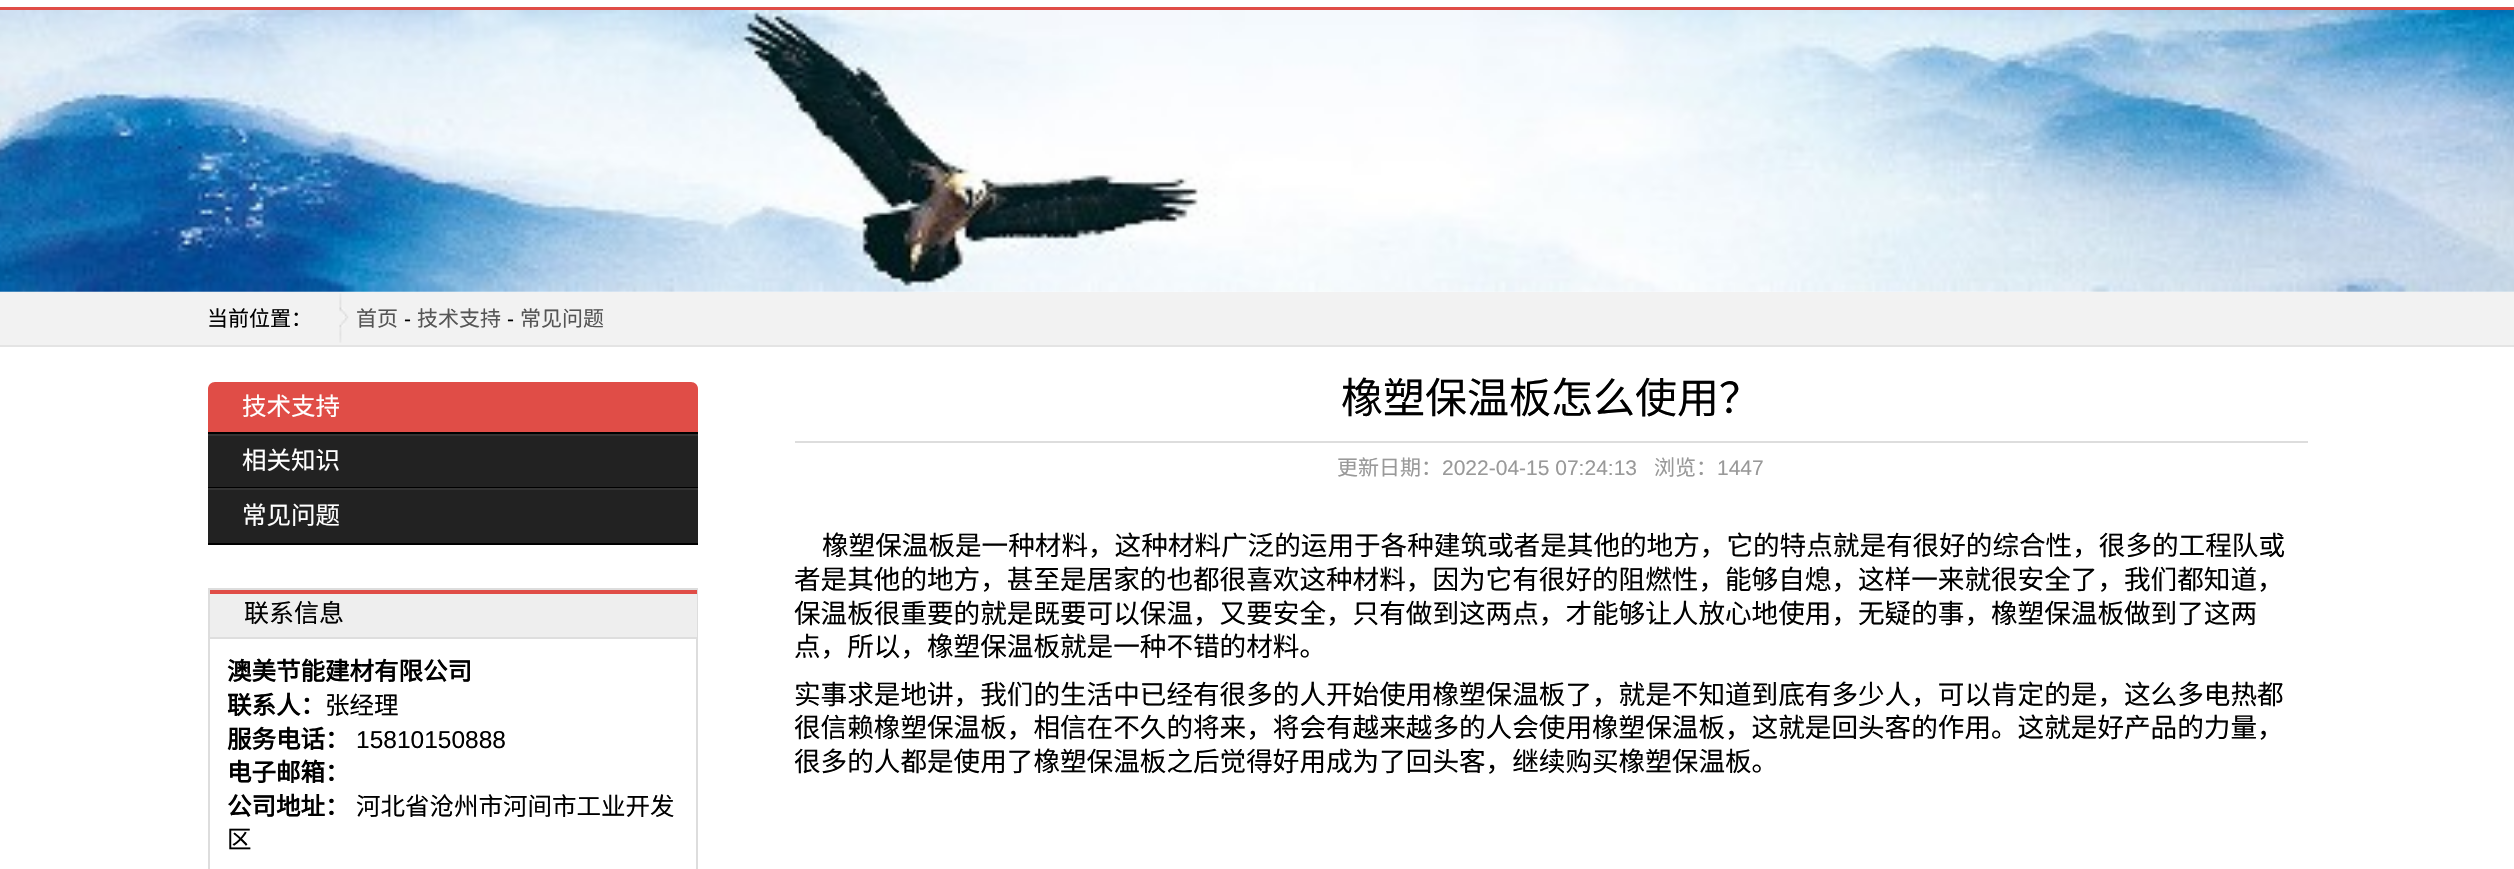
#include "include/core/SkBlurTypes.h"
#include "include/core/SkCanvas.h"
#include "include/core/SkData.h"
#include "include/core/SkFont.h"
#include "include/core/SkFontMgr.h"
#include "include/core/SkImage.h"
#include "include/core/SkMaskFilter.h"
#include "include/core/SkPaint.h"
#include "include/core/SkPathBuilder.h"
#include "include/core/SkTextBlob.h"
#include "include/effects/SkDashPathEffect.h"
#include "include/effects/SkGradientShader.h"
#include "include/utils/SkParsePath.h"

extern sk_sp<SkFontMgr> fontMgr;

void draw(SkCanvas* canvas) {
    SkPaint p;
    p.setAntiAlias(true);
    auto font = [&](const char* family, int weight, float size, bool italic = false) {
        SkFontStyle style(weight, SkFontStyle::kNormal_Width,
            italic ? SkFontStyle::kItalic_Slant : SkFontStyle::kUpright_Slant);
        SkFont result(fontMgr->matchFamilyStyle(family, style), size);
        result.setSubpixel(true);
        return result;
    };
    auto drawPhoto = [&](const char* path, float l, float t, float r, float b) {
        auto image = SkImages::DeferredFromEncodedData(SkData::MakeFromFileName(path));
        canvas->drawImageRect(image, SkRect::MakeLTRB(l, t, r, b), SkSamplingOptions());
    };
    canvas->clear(0xFFFFFFFF);
    p.setColor(0xFFE04D47);
    canvas->drawRect(SkRect::MakeLTRB(0, 7, 2514, 10), p);
    drawPhoto("media/1.png", 0, 10, 2514, 292);
    p.setColor(0xFFF2F2F2);
    canvas->drawRect(SkRect::MakeLTRB(0, 292, 2514, 345), p);
    p.setColor(0xFFE4E4E4);
    canvas->drawRect(SkRect::MakeLTRB(0, 345, 2514, 347), p);
    drawPhoto("media/2.png", 339, 293, 349, 343);
    auto font1 = font("Noto Sans CJK SC", 400, 21);
    p.setColor(0xFF000000);
    canvas->drawString("当前位置：", 207, 326, font1, p);
    p.setColor(0xFF555555);
    canvas->drawString("首页", 356, 326, font1, p);
    auto font2 = font("Liberation Sans", 400, 21);
    p.setColor(0xFF000000);
    canvas->drawString("-", 404, 326, font2, p);
    p.setColor(0xFF555555);
    canvas->drawString("技术支持", 417, 326, font1, p);
    p.setColor(0xFF000000);
    canvas->drawString("-", 507, 326, font2, p);
    p.setColor(0xFF555555);
    canvas->drawString("常见问题", 520, 326, font1, p);
    p.setColor(0xFFE04D47);
    canvas->drawPath(SkPathBuilder().moveTo(215, 382).lineTo(691, 382).cubicTo(695, 382, 698, 385, 698, 389).lineTo(698, 434).lineTo(208, 434).lineTo(208, 389).cubicTo(208, 385, 211, 382, 215, 382).close().detach(), p);
    p.setColor(0xFF000000);
    canvas->drawRect(SkRect::MakeLTRB(208, 432, 698, 434), p);
    auto font3 = font("Noto Sans CJK SC", 400, 24.5f);
    p.setColor(0xFFFFFFFF);
    canvas->drawString("技术支持", 242, 415, font3, p);
    {
        const struct { float l, t, r, b; SkColor color; } items[] = {
            {208, 436, 698, 487, 0xFF222222},
            {208, 434, 698, 436, 0xFF333333},
            {208, 487, 698, 488, 0xFF000000},
        };
        for (auto [l, t, r, b, color] : items) {
            p.setColor(color);
            canvas->drawRect(SkRect::MakeLTRB(l, t, r, b), p);
        }
    }
    p.setColor(0xFFFFFFFF);
    canvas->drawString("相关知识", 242, 469, font3, p);
    {
        const struct { float l, t, r, b; SkColor color; } items[] = {
            {208, 490, 698, 543, 0xFF222222},
            {208, 488, 698, 490, 0xFF333333},
            {208, 543, 698, 545, 0xFF000000},
        };
        for (auto [l, t, r, b, color] : items) {
            p.setColor(color);
            canvas->drawRect(SkRect::MakeLTRB(l, t, r, b), p);
        }
    }
    p.setColor(0xFFFFFFFF);
    canvas->drawString("常见问题", 242, 524, font3, p);
    p.setStyle(SkPaint::kStroke_Style);
    p.setStrokeWidth(2);
    p.setColor(0xFFDDDDDD);
    canvas->drawRect(SkRect::MakeLTRB(209, 589, 697, 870), p);
    p.setStyle(SkPaint::kFill_Style);
    {
        const struct { float l, t, r, b; SkColor color; } items[] = {
            {210, 594, 697, 637, 0xFFEEEEEE},
            {210, 590, 697, 594, 0xFFE04D47},
            {210, 637, 697, 639, 0xFFDEDEDE},
        };
        for (auto [l, t, r, b, color] : items) {
            p.setColor(color);
            canvas->drawRect(SkRect::MakeLTRB(l, t, r, b), p);
        }
    }
    auto font4 = font("Noto Sans CJK SC", 400, 25);
    p.setColor(0xFF000000);
    canvas->drawString("联系信息", 244, 622, font4, p);
    auto font5 = font("Noto Sans CJK SC", 700, 24.5f);
    canvas->drawString("澳美节能建材有限公司", 227, 680, font5, p);
    canvas->drawString("联系人：", 227, 714, font5, p);
    canvas->drawString("张经理", 325, 714, font3, p);
    canvas->drawString("服务电话：", 227, 748, font5, p);
    auto font6 = font("Liberation Sans", 400, 24.5f);
    canvas->drawString("15810150888", 356, 748, font6, p);
    canvas->drawString("电子邮箱：", 227, 781, font5, p);
    canvas->drawString("公司地址：", 227, 815, font5, p);
    canvas->drawString("河北省沧州市河间市工业开发", 356, 815, font3, p);
    canvas->drawString("区", 227, 848, font3, p);
    p.setColor(0xFFDDDDDD);
    canvas->drawRect(SkRect::MakeLTRB(795, 441, 2308, 443), p);
    auto font7 = font("Noto Sans CJK SC", 400, 42);
    p.setColor(0xFF000000);
    canvas->drawString("橡塑保温板怎么使用？", 1341, 413, font7, p);
    p.setColor(0xFF999999);
    canvas->drawString("更新日期：", 1337, 475, font1, p);
    canvas->drawString("2022-04-15 07:24:13", 1442, 475, font2, p);
    canvas->drawString("浏览：", 1654, 475, font1, p);
    canvas->drawString("1447", 1717, 475, font2, p);
    auto font8 = font("Noto Sans CJK SC", 400, 26.6f);
    p.setColor(0xFF000000);
    {
        const struct { const char* s; float x, y; } items[] = {
            {"橡塑保温板是一种材料，这种材料广泛的运用于各种建筑或者是其他的地方，它的特点就是有很好的综合性，很多的工程队或", 822, 555},
            {"者是其他的地方，甚至是居家的也都很喜欢这种材料，因为它有很好的阻燃性，能够自熄，这样一来就很安全了，我们都知道，", 794, 589},
            {"保温板很重要的就是既要可以保温，又要安全，只有做到这两点，才能够让人放心地使用，无疑的事，橡塑保温板做到了这两", 794, 623},
            {"点，所以，橡塑保温板就是一种不错的材料。", 794, 656},
            {"实事求是地讲，我们的生活中已经有很多的人开始使用橡塑保温板了，就是不知道到底有多少人，可以肯定的是，这么多电热都", 794, 704},
            {"很信赖橡塑保温板，相信在不久的将来，将会有越来越多的人会使用橡塑保温板，这就是回头客的作用。这就是好产品的力量，", 794, 737},
            {"很多的人都是使用了橡塑保温板之后觉得好用成为了回头客，继续购买橡塑保温板。", 794, 771},
        };
        for (auto [s, x, y] : items) {
            canvas->drawString(s, x, y, font8, p);
        }
    }
}
